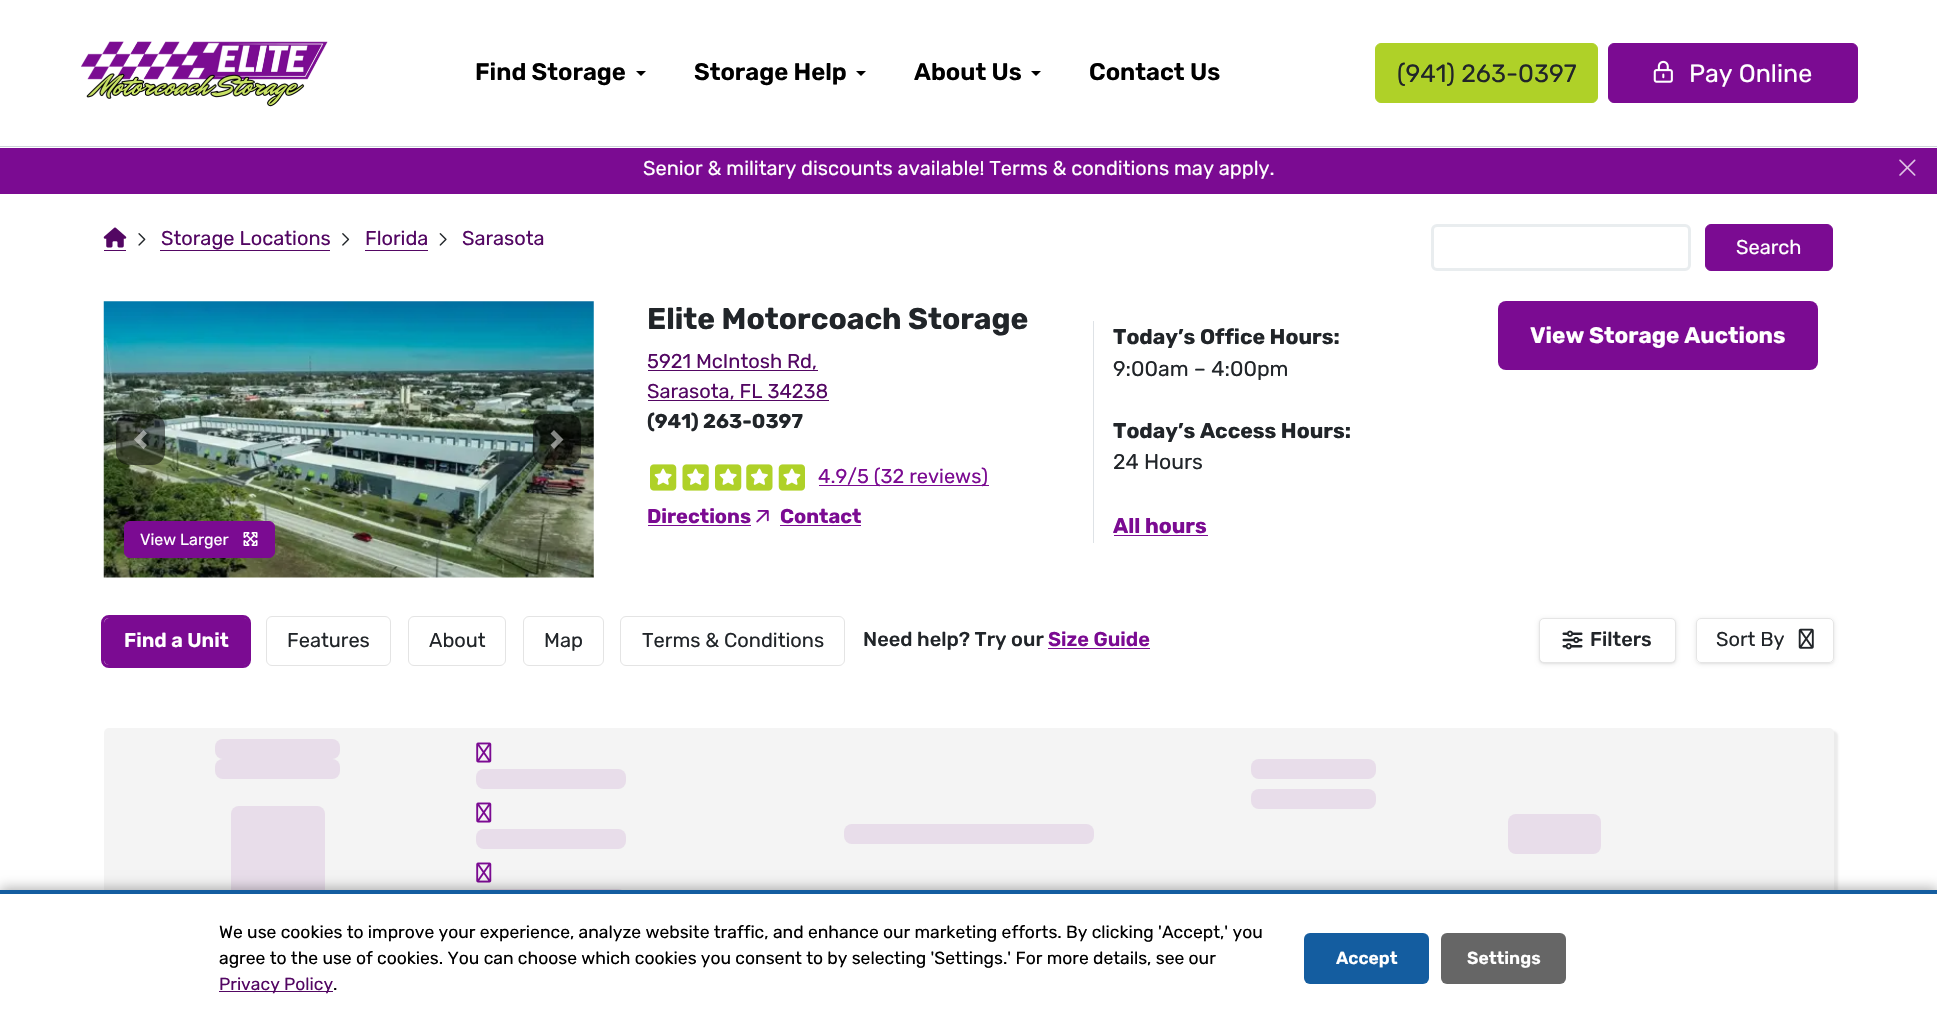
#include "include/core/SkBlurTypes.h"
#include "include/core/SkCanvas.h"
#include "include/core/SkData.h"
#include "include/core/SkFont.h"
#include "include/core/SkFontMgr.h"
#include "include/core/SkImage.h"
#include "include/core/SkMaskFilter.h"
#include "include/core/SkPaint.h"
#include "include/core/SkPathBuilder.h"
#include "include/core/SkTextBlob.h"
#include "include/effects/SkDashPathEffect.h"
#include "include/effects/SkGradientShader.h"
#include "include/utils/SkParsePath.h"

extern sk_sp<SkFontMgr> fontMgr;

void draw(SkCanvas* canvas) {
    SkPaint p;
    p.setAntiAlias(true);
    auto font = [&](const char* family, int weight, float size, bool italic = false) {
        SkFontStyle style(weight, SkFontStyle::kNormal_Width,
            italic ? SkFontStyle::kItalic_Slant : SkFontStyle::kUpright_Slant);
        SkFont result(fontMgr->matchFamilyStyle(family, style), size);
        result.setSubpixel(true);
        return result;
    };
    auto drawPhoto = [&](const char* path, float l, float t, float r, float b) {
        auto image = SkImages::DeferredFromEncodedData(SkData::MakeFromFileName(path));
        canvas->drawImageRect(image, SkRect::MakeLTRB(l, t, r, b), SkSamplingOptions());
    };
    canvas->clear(0xFFFFFFFF);
    p.setColor(0xFFCED4DA);
    canvas->drawRect(SkRect::MakeLTRB(0, 146, 1937, 147), p);
    drawPhoto("media/1.png", 81, 41, 328, 107);
    auto font1 = font("Rubik", 600, 24);
    p.setColor(0xFF000000);
    canvas->drawString("Find Storage", 475, 80, font1, p);
    canvas->drawPath(SkPathBuilder().moveTo(636, 71).lineTo(646, 71).lineTo(641, 76).close().detach(), p);
    canvas->drawString("Storage Help", 694, 80, font1, p);
    canvas->drawPath(SkPathBuilder().moveTo(856, 71).lineTo(866, 71).lineTo(861, 76).close().detach(), p);
    canvas->drawString("About Us", 914, 80, font1, p);
    canvas->drawPath(SkPathBuilder().moveTo(1031, 71).lineTo(1041, 71).lineTo(1036, 76).close().detach(), p);
    canvas->drawString("Contact Us", 1089, 80, font1, p);
    p.setColor(0xFFAFD128);
    canvas->drawRoundRect(SkRect::MakeLTRB(1375.5f, 43.5f, 1597.5f, 102.5f), 5.5f, 5.5f, p);
    p.setStyle(SkPaint::kStroke_Style);
    p.setStrokeWidth(1);
    canvas->drawRoundRect(SkRect::MakeLTRB(1375.5f, 43.5f, 1597.5f, 102.5f), 5.5f, 5.5f, p);
    auto font2 = font("Rubik", 400, 25);
    p.setStyle(SkPaint::kFill_Style);
    p.setColor(0xFF212529);
    canvas->drawString("(941) 263-0397", 1397, 82, font2, p);
    p.setColor(0xFF7B0B92);
    canvas->drawRoundRect(SkRect::MakeLTRB(1608.5f, 43.5f, 1857.5f, 102.5f), 5.5f, 5.5f, p);
    p.setStyle(SkPaint::kStroke_Style);
    canvas->drawRoundRect(SkRect::MakeLTRB(1608.5f, 43.5f, 1857.5f, 102.5f), 5.5f, 5.5f, p);
    drawPhoto("media/2.png", 1653, 60, 1673, 83);
    p.setStyle(SkPaint::kFill_Style);
    p.setColor(0xFFFFFFFF);
    canvas->drawString("Pay Online", 1689, 82, font2, p);
    p.setColor(0xFF7B0B92);
    canvas->drawRect(SkRect::MakeLTRB(0, 148, 1937, 194), p);
    auto font3 = font("Rubik", 400, 20);
    p.setColor(0xFFFFFFFF);
    canvas->drawString("Senior & military discounts available! Terms & conditions may apply.", 643, 175, font3, p);
    drawPhoto("media/3.png", 1899, 159, 1916, 176);
    p.setColor(0xFF530763);
    canvas->drawRect(SkRect::MakeLTRB(104, 250, 126, 251), p);
    drawPhoto("media/4.png", 103, 227, 127, 248);
    drawPhoto("media/5.png", 138, 233, 146, 246);
    canvas->drawString("Storage Locations", 161, 245, font3, p);
    canvas->drawRect(SkRect::MakeLTRB(160, 250, 330, 251), p);
    drawPhoto("media/6.png", 342, 233, 350, 246);
    canvas->drawString("Florida", 365, 245, font3, p);
    canvas->drawRect(SkRect::MakeLTRB(365, 250, 428, 251), p);
    drawPhoto("media/7.png", 439, 233, 447, 246);
    canvas->drawString("Sarasota", 462, 245, font3, p);
    p.setStyle(SkPaint::kStroke_Style);
    p.setStrokeWidth(3);
    p.setColor(0xFFE9EDEF);
    canvas->drawRoundRect(SkRect::MakeLTRB(1432.5f, 225.5f, 1689.5f, 269.5f), 4.5f, 4.5f, p);
    p.setStyle(SkPaint::kFill_Style);
    p.setColor(0xFF7B0B92);
    canvas->drawRoundRect(SkRect::MakeLTRB(1705.5f, 224.5f, 1832.5f, 270.5f), 5.5f, 5.5f, p);
    p.setStyle(SkPaint::kStroke_Style);
    p.setStrokeWidth(1);
    canvas->drawRoundRect(SkRect::MakeLTRB(1705.5f, 224.5f, 1832.5f, 270.5f), 5.5f, 5.5f, p);
    p.setStyle(SkPaint::kFill_Style);
    p.setColor(0xFFFFFFFF);
    canvas->drawString("Search", 1736, 254, font3, p);
    auto font4 = font("Rubik", 700, 30);
    p.setColor(0xFF212529);
    canvas->drawString("Elite Motorcoach Storage", 647, 329, font4, p);
    p.setColor(0xFF530763);
    canvas->drawString("5921 McIntosh Rd,", 647, 368, font3, p);
    canvas->drawRect(SkRect::MakeLTRB(648, 370, 818, 371), p);
    canvas->drawString("Sarasota, FL 34238", 647, 398, font3, p);
    canvas->drawRect(SkRect::MakeLTRB(648, 400, 829, 401), p);
    auto font5 = font("Rubik", 700, 20);
    p.setColor(0xFF212529);
    canvas->drawString("(941) 263-0397", 647, 428, font5, p);
    drawPhoto("media/8.png", 650, 464, 677, 491);
    drawPhoto("media/9.png", 682, 464, 709, 491);
    drawPhoto("media/8.png", 715, 464, 742, 491);
    drawPhoto("media/10.png", 746, 464, 773, 491);
    drawPhoto("media/11.png", 778, 464, 805, 491);
    p.setColor(0xFF7B0B92);
    canvas->drawRect(SkRect::MakeLTRB(819, 485, 989, 486), p);
    canvas->drawString("4.9/5 (32 reviews)", 818, 483, font3, p);
    canvas->drawString("Directions", 647, 523, font5, p);
    canvas->drawRect(SkRect::MakeLTRB(648, 525, 751, 526), p);
    drawPhoto("media/12.png", 756, 510, 769, 523);
    canvas->drawString("Contact", 780, 523, font5, p);
    canvas->drawRect(SkRect::MakeLTRB(780, 525, 861, 526), p);
    drawPhoto("media/13.png", 103, 301, 594, 578);
    p.setColor(0x80000000);
    canvas->drawRoundRect(SkRect::MakeLTRB(116, 414, 165, 465), 13, 13, p);
    p.setColor(0x80FFFFFF);
    canvas->drawPath(SkPathBuilder().moveTo(143.5f, 430).lineTo(134, 439.5f).lineTo(143.5f, 449).lineTo(147, 445).lineTo(141, 439.5f).lineTo(147, 433.5f).close().detach(), p);
    p.setColor(0x80000000);
    canvas->drawRoundRect(SkRect::MakeLTRB(533, 414, 581, 465), 13, 13, p);
    p.setColor(0x80FFFFFF);
    canvas->drawPath(SkPathBuilder().moveTo(554, 430).lineTo(550.5f, 433.5f).lineTo(556.5f, 439.5f).lineTo(550.5f, 445).lineTo(554, 449).lineTo(563.5f, 439.5f).close().detach(), p);
    p.setColor(0xFF7B0B92);
    canvas->drawRoundRect(SkRect::MakeLTRB(124.5f, 521.5f, 274.5f, 557.5f), 5.5f, 5.5f, p);
    p.setStyle(SkPaint::kStroke_Style);
    canvas->drawRoundRect(SkRect::MakeLTRB(124.5f, 521.5f, 274.5f, 557.5f), 5.5f, 5.5f, p);
    auto font6 = font("Rubik", 400, 16);
    p.setStyle(SkPaint::kFill_Style);
    p.setColor(0xFFFFFFFF);
    canvas->drawString("View Larger", 140, 545, font6, p);
    drawPhoto("media/14.png", 243, 532, 258, 546);
    p.setColor(0xFFDEE2E6);
    canvas->drawRect(SkRect::MakeLTRB(1093, 321, 1094, 543), p);
    auto font7 = font("Rubik", 700, 21.25f);
    p.setColor(0xFF212529);
    canvas->drawString("Today’s Office Hours:", 1113, 344, font7, p);
    auto font8 = font("Rubik", 400, 21.25f);
    canvas->drawString("9:00am – 4:00pm", 1113, 376, font8, p);
    canvas->drawString("Today’s Access Hours:", 1113, 438, font7, p);
    canvas->drawString("24 Hours", 1113, 469, font8, p);
    p.setColor(0xFF7B0B92);
    canvas->drawString("All hours", 1113, 533, font7, p);
    canvas->drawRect(SkRect::MakeLTRB(1114, 535, 1208, 536), p);
    canvas->drawRoundRect(SkRect::MakeLTRB(1498, 301, 1818, 370), 8, 8, p);
    auto font9 = font("Rubik", 700, 22.5f);
    p.setColor(0xFFFFFFFF);
    canvas->drawString("View Storage Auctions", 1530, 343, font9, p);
    p.setColor(0xFF7B0B92);
    canvas->drawRoundRect(SkRect::MakeLTRB(104.5f, 618.5f, 248.5f, 664.5f), 4.5f, 4.5f, p);
    p.setStyle(SkPaint::kStroke_Style);
    canvas->drawRoundRect(SkRect::MakeLTRB(104.5f, 618.5f, 248.5f, 664.5f), 4.5f, 4.5f, p);
    p.setStrokeWidth(3);
    canvas->drawRoundRect(SkRect::MakeLTRB(102.5f, 616.5f, 249.5f, 666.5f), 6.5f, 6.5f, p);
    auto font10 = font("Rubik", 600, 20);
    p.setStyle(SkPaint::kFill_Style);
    p.setColor(0xFFFFFFFF);
    canvas->drawString("Find a Unit", 124, 647, font10, p);
    p.setStyle(SkPaint::kStroke_Style);
    p.setStrokeWidth(1);
    p.setColor(0xFFE4E4E4);
    canvas->drawRoundRect(SkRect::MakeLTRB(266.5f, 616.5f, 390.5f, 665.5f), 5.5f, 5.5f, p);
    p.setStyle(SkPaint::kFill_Style);
    p.setColor(0xFF212529);
    canvas->drawString("Features", 287, 647, font3, p);
    p.setStyle(SkPaint::kStroke_Style);
    p.setColor(0xFFE4E4E4);
    canvas->drawRoundRect(SkRect::MakeLTRB(408.5f, 616.5f, 505.5f, 665.5f), 5.5f, 5.5f, p);
    p.setStyle(SkPaint::kFill_Style);
    p.setColor(0xFF212529);
    canvas->drawString("About", 429, 647, font3, p);
    p.setStyle(SkPaint::kStroke_Style);
    p.setColor(0xFFE4E4E4);
    canvas->drawRoundRect(SkRect::MakeLTRB(523.5f, 616.5f, 603.5f, 665.5f), 5.5f, 5.5f, p);
    p.setStyle(SkPaint::kFill_Style);
    p.setColor(0xFF212529);
    canvas->drawString("Map", 544, 647, font3, p);
    p.setStyle(SkPaint::kStroke_Style);
    p.setColor(0xFFE4E4E4);
    canvas->drawRoundRect(SkRect::MakeLTRB(620.5f, 616.5f, 844.5f, 665.5f), 5.5f, 5.5f, p);
    p.setStyle(SkPaint::kFill_Style);
    p.setColor(0xFF212529);
    canvas->drawString("Terms & Conditions", 642, 647, font3, p);
    auto font11 = font("Rubik", 500, 20);
    canvas->drawString("Need help? Try our", 863, 646, font11, p);
    p.setColor(0xFF7B0B92);
    canvas->drawString("Size Guide", 1048, 646, font10, p);
    canvas->drawRect(SkRect::MakeLTRB(1048, 648, 1150, 649), p);
    p.setColor(0x1A000000);
    p.setMaskFilter(SkMaskFilter::MakeBlur(kNormal_SkBlurStyle, 1));
    canvas->drawRoundRect(SkRect::MakeLTRB(1540, 620, 1675, 663), 4, 4, p);
    p.setMaskFilter(nullptr);
    p.setMaskFilter(SkMaskFilter::MakeBlur(kNormal_SkBlurStyle, 2));
    canvas->drawRoundRect(SkRect::MakeLTRB(1539, 619, 1676, 664), 5, 5, p);
    p.setMaskFilter(nullptr);
    p.setColor(0xFFFFFFFF);
    canvas->drawRoundRect(SkRect::MakeLTRB(1539.5f, 618.5f, 1675.5f, 662.5f), 4.5f, 4.5f, p);
    p.setStyle(SkPaint::kStroke_Style);
    p.setColor(0xFFE5E5E5);
    canvas->drawRoundRect(SkRect::MakeLTRB(1539.5f, 618.5f, 1675.5f, 662.5f), 4.5f, 4.5f, p);
    drawPhoto("media/15.png", 1562, 630, 1583, 650);
    p.setStyle(SkPaint::kFill_Style);
    p.setColor(0xFF212529);
    canvas->drawString("Filters", 1590, 646, font11, p);
    canvas->save();
    canvas->clipPath(SkPathBuilder(SkPathFillType::kEvenOdd).moveTo(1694, 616).lineTo(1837, 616).lineTo(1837, 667).lineTo(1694, 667).close().moveTo(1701, 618).lineTo(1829, 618).cubicTo(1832, 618, 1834, 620, 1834, 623).lineTo(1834, 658).cubicTo(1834, 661, 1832, 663, 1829, 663).lineTo(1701, 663).cubicTo(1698, 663, 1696, 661, 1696, 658).lineTo(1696, 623).cubicTo(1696, 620, 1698, 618, 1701, 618).close().detach(), true);
    p.setColor(0x1A000000);
    p.setMaskFilter(SkMaskFilter::MakeBlur(kNormal_SkBlurStyle, 1));
    canvas->drawRoundRect(SkRect::MakeLTRB(1698, 620, 1833, 663), 4, 4, p);
    p.setMaskFilter(nullptr);
    canvas->restore();
    canvas->save();
    canvas->clipPath(SkPathBuilder(SkPathFillType::kEvenOdd).moveTo(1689, 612).lineTo(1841, 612).lineTo(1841, 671).lineTo(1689, 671).close().moveTo(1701, 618).lineTo(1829, 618).cubicTo(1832, 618, 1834, 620, 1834, 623).lineTo(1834, 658).cubicTo(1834, 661, 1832, 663, 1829, 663).lineTo(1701, 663).cubicTo(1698, 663, 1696, 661, 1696, 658).lineTo(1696, 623).cubicTo(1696, 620, 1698, 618, 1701, 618).close().detach(), true);
    p.setMaskFilter(SkMaskFilter::MakeBlur(kNormal_SkBlurStyle, 2));
    canvas->drawRoundRect(SkRect::MakeLTRB(1696, 619, 1834, 664), 5, 5, p);
    p.setMaskFilter(nullptr);
    canvas->restore();
    p.setStyle(SkPaint::kStroke_Style);
    p.setColor(0xFFE5E5E5);
    canvas->drawRoundRect(SkRect::MakeLTRB(1696.5f, 618.5f, 1833.5f, 662.5f), 4.5f, 4.5f, p);
    p.setStyle(SkPaint::kFill_Style);
    p.setColor(0xFF212529);
    canvas->drawString("Sort By", 1716, 646, font3, p);
    drawPhoto("media/16.png", 1798, 628, 1814, 649);
    p.setColor(0x14000000);
    p.setMaskFilter(SkMaskFilter::MakeBlur(kNormal_SkBlurStyle, 1));
    canvas->drawRoundRect(SkRect::MakeLTRB(108, 731, 1838, 944), 5, 5, p);
    p.setMaskFilter(nullptr);
    p.setColor(0xFFF4F4F4);
    canvas->drawRoundRect(SkRect::MakeLTRB(104, 728, 1834, 940), 5, 5, p);
    p.setColor(0xFFE8DDEA);
    canvas->drawRoundRect(SkRect::MakeLTRB(215, 739, 340, 759), 8, 8, p);
    drawPhoto("media/17.png", 476, 742, 492, 763);
    canvas->drawRoundRect(SkRect::MakeLTRB(476, 769, 626, 789), 8, 8, p);
    drawPhoto("media/17.png", 476, 802, 492, 823);
    canvas->drawRoundRect(SkRect::MakeLTRB(476, 829, 626, 849), 8, 8, p);
    drawPhoto("media/17.png", 476, 862, 492, 883);
    canvas->drawRoundRect(SkRect::MakeLTRB(476, 889, 626, 909), 8, 8, p);
    canvas->drawRoundRect(SkRect::MakeLTRB(215, 759, 340, 779), 8, 8, p);
    canvas->drawRoundRect(SkRect::MakeLTRB(1251, 759, 1376, 779), 8, 8, p);
    canvas->drawRoundRect(SkRect::MakeLTRB(1251, 789, 1376, 809), 8, 8, p);
    canvas->drawRoundRect(SkRect::MakeLTRB(231, 806, 325, 900), 8, 8, p);
    canvas->drawRoundRect(SkRect::MakeLTRB(844, 824, 1094, 844), 8, 8, p);
    canvas->drawRoundRect(SkRect::MakeLTRB(1508, 814, 1601, 854), 8, 8, p);
    p.setColor(0x4D000000);
    p.setMaskFilter(SkMaskFilter::MakeBlur(kNormal_SkBlurStyle, 6));
    canvas->drawRect(SkRect::MakeLTRB(0, 888, 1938, 1020), p);
    p.setMaskFilter(nullptr);
    p.setColor(0xFFFFFFFF);
    canvas->drawRect(SkRect::MakeLTRB(0, 894, 1937, 1022), p);
    p.setColor(0xFF145DA0);
    canvas->drawRect(SkRect::MakeLTRB(0, 890, 1937, 894), p);
    auto font12 = font("Rubik", 400, 17.5f);
    p.setColor(0xFF000000);
    canvas->drawString("We use cookies to improve your experience, analyze website traffic, and enhance our marketing efforts. By clicking 'Accept,' you", 219, 938, font12, p);
    canvas->drawString("agree to the use of cookies. You can choose which cookies you consent to by selecting 'Settings.' For more details, see our", 219, 964, font12, p);
    p.setColor(0xFF530763);
    canvas->drawRect(SkRect::MakeLTRB(219, 991, 333, 992), p);
    canvas->drawString("Privacy Policy", 219, 990, font12, p);
    p.setColor(0xFF000000);
    canvas->drawString(".", 333, 990, font12, p);
    p.setColor(0xFF145DA0);
    canvas->drawRoundRect(SkRect::MakeLTRB(1304, 933, 1429, 984), 6, 6, p);
    auto font13 = font("Rubik", 600, 17.5f);
    p.setColor(0xFFFFFFFF);
    canvas->drawString("Accept", 1336, 964, font13, p);
    p.setColor(0xFF666666);
    canvas->drawRoundRect(SkRect::MakeLTRB(1441, 933, 1566, 984), 6, 6, p);
    p.setColor(0xFFFFFFFF);
    canvas->drawString("Settings", 1467, 964, font13, p);
}
